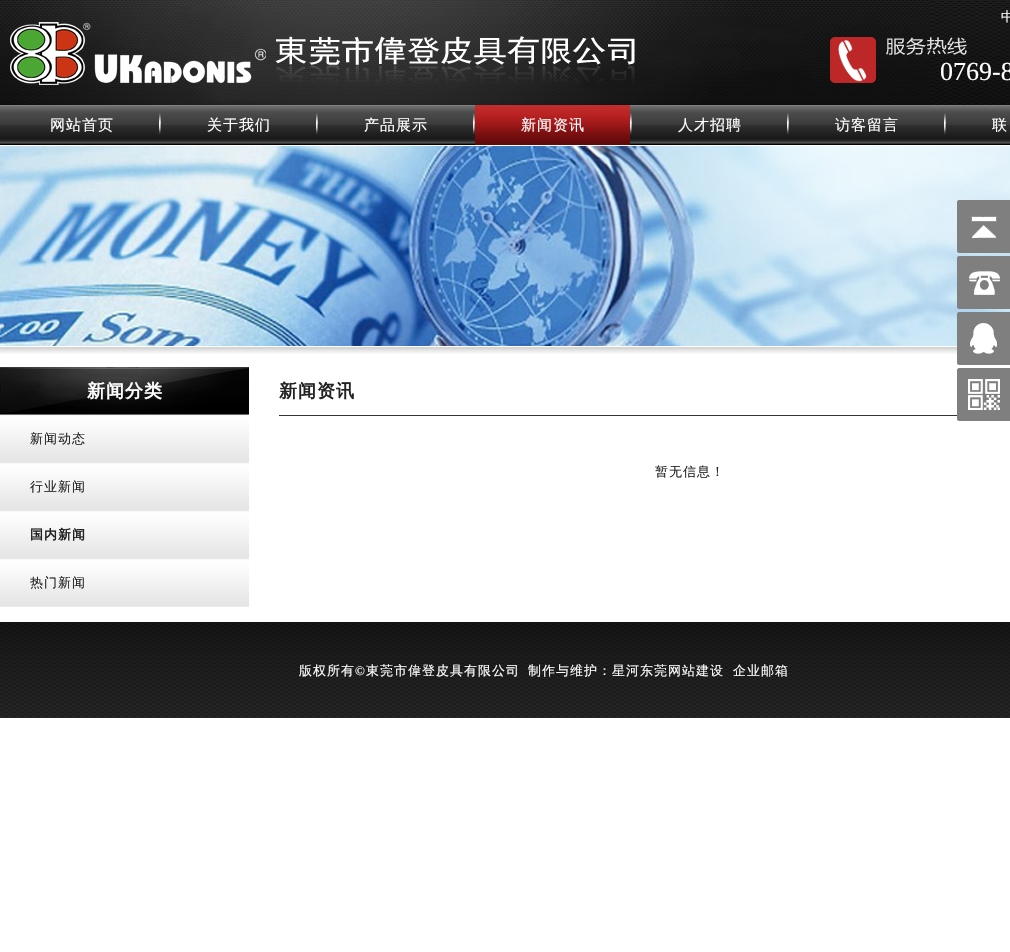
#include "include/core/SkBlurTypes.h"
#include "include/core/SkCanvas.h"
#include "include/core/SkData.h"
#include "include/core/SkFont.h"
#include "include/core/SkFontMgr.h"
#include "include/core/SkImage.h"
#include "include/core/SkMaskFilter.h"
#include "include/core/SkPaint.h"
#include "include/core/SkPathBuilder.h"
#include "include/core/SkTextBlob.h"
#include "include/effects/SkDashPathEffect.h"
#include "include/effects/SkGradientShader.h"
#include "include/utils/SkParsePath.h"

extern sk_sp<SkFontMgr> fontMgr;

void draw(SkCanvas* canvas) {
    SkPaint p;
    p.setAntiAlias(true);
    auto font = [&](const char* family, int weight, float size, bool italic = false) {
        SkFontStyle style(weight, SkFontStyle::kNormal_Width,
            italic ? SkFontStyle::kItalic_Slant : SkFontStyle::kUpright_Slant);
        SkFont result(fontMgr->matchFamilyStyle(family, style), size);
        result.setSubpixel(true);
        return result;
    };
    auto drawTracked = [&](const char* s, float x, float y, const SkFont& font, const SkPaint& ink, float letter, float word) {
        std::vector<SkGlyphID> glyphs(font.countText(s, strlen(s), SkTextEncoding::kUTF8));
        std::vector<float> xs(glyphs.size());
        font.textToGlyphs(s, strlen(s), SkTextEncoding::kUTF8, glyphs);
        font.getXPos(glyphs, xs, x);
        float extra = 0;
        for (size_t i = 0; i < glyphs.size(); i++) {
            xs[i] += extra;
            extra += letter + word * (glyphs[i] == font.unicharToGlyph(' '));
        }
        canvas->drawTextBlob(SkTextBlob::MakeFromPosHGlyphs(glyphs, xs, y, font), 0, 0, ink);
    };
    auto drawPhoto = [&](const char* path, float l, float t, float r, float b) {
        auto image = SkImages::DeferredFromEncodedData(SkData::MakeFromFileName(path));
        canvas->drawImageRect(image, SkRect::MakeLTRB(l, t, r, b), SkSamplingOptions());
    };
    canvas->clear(0xFFFFFFFF);
    drawPhoto("media/1.png", 0, 0, 1010, 105);
    drawPhoto("media/2.png", 10, 22, 635, 85);
    drawPhoto("media/3.png", 830, 37, 967, 83);
    auto font1 = font("WenQuanYi Zen Hei", 500, 13);
    p.setColor(0xFFFFFFFF);
    drawTracked("中", 1001, 21, font1, p, 1, 0);
    auto font2 = font("Liberation Serif", 400, 26);
    canvas->drawString("0769-8", 940, 80, font2, p);
    drawPhoto("media/4.png", 0, 105, 1010, 145);
    auto font3 = font("WenQuanYi Zen Hei", 500, 15);
    drawTracked("网站首页", 50, 130, font3, p, 1, 0);
    drawPhoto("media/5.png", 159, 113, 161, 135);
    drawTracked("关于我们", 207, 130, font3, p, 1, 0);
    drawPhoto("media/5.png", 316, 113, 318, 135);
    drawTracked("产品展示", 364, 130, font3, p, 1, 0);
    drawPhoto("media/5.png", 473, 113, 475, 135);
    drawPhoto("media/6.png", 475, 105, 630, 145);
    drawTracked("新闻资讯", 521, 130, font3, p, 1, 0);
    drawPhoto("media/5.png", 630, 113, 632, 135);
    drawTracked("人才招聘", 678, 130, font3, p, 1, 0);
    drawPhoto("media/5.png", 787, 113, 789, 135);
    drawTracked("访客留言", 835, 130, font3, p, 1, 0);
    drawPhoto("media/5.png", 944, 113, 946, 135);
    drawTracked("联", 992, 130, font3, p, 1, 0);
    drawPhoto("media/7.png", 0, 146, 1010, 346);
    drawPhoto("media/8.png", 0, 347, 957, 354);
    p.setColor(0xFF7F7F7F);
    canvas->drawRoundRect(SkRect::MakeLTRB(957, 200, 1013, 253), 3, 3, p);
    drawPhoto("media/9.png", 957, 200, 997, 253);
    canvas->drawRoundRect(SkRect::MakeLTRB(957, 256, 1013, 309), 3, 3, p);
    drawPhoto("media/10.png", 957, 256, 1000, 309);
    canvas->drawRoundRect(SkRect::MakeLTRB(957, 312, 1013, 365), 3, 3, p);
    drawPhoto("media/11.png", 957, 312, 997, 365);
    canvas->drawRoundRect(SkRect::MakeLTRB(957, 368, 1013, 421), 3, 3, p);
    drawPhoto("media/12.png", 957, 368, 1000, 421);
    drawPhoto("media/13.png", 0, 367, 249, 415);
    auto font4 = font("WenQuanYi Zen Hei", 700, 18);
    p.setColor(0xFFFFFFFF);
    drawTracked("新闻分类", 87, 397, font4, p, 1, 0);
    drawPhoto("media/14.png", 0, 415, 249, 463);
    p.setColor(0xFF222222);
    drawTracked("新闻动态", 30, 443, font1, p, 1, 0);
    drawPhoto("media/14.png", 0, 463, 249, 511);
    drawTracked("行业新闻", 30, 491, font1, p, 1, 0);
    drawPhoto("media/14.png", 0, 511, 249, 559);
    auto font5 = font("WenQuanYi Zen Hei", 700, 13);
    drawTracked("国内新闻", 30, 539, font5, p, 1, 0);
    drawPhoto("media/14.png", 0, 559, 249, 607);
    drawTracked("热门新闻", 30, 587, font1, p, 1, 0);
    p.setColor(0xFF333333);
    canvas->drawRect(SkRect::MakeLTRB(279, 415, 957, 416), p);
    p.setColor(0xFF222222);
    drawTracked("新闻资讯", 279, 397, font4, p, 1, 0);
    drawTracked("暂无信息！", 655, 476, font1, p, 1, 0);
    drawPhoto("media/15.png", 0, 622, 1010, 718);
    p.setColor(0xFFFFFFFF);
    drawTracked("版权所有", 299, 675, font1, p, 1, 0);
    auto font6 = font("Liberation Serif", 400, 13);
    drawTracked("©", 355, 675, font6, p, 1, 0);
    {
        const struct { const char* s; float x, y; } items[] = {
            {"東莞市偉登皮具有限公司", 366, 675},
            {"制作与维护：星河东莞网站建设", 528, 675},
            {"企业邮箱", 733, 675},
        };
        for (auto [s, x, y] : items) {
            drawTracked(s, x, y, font1, p, 1, 0);
        }
    }
}
